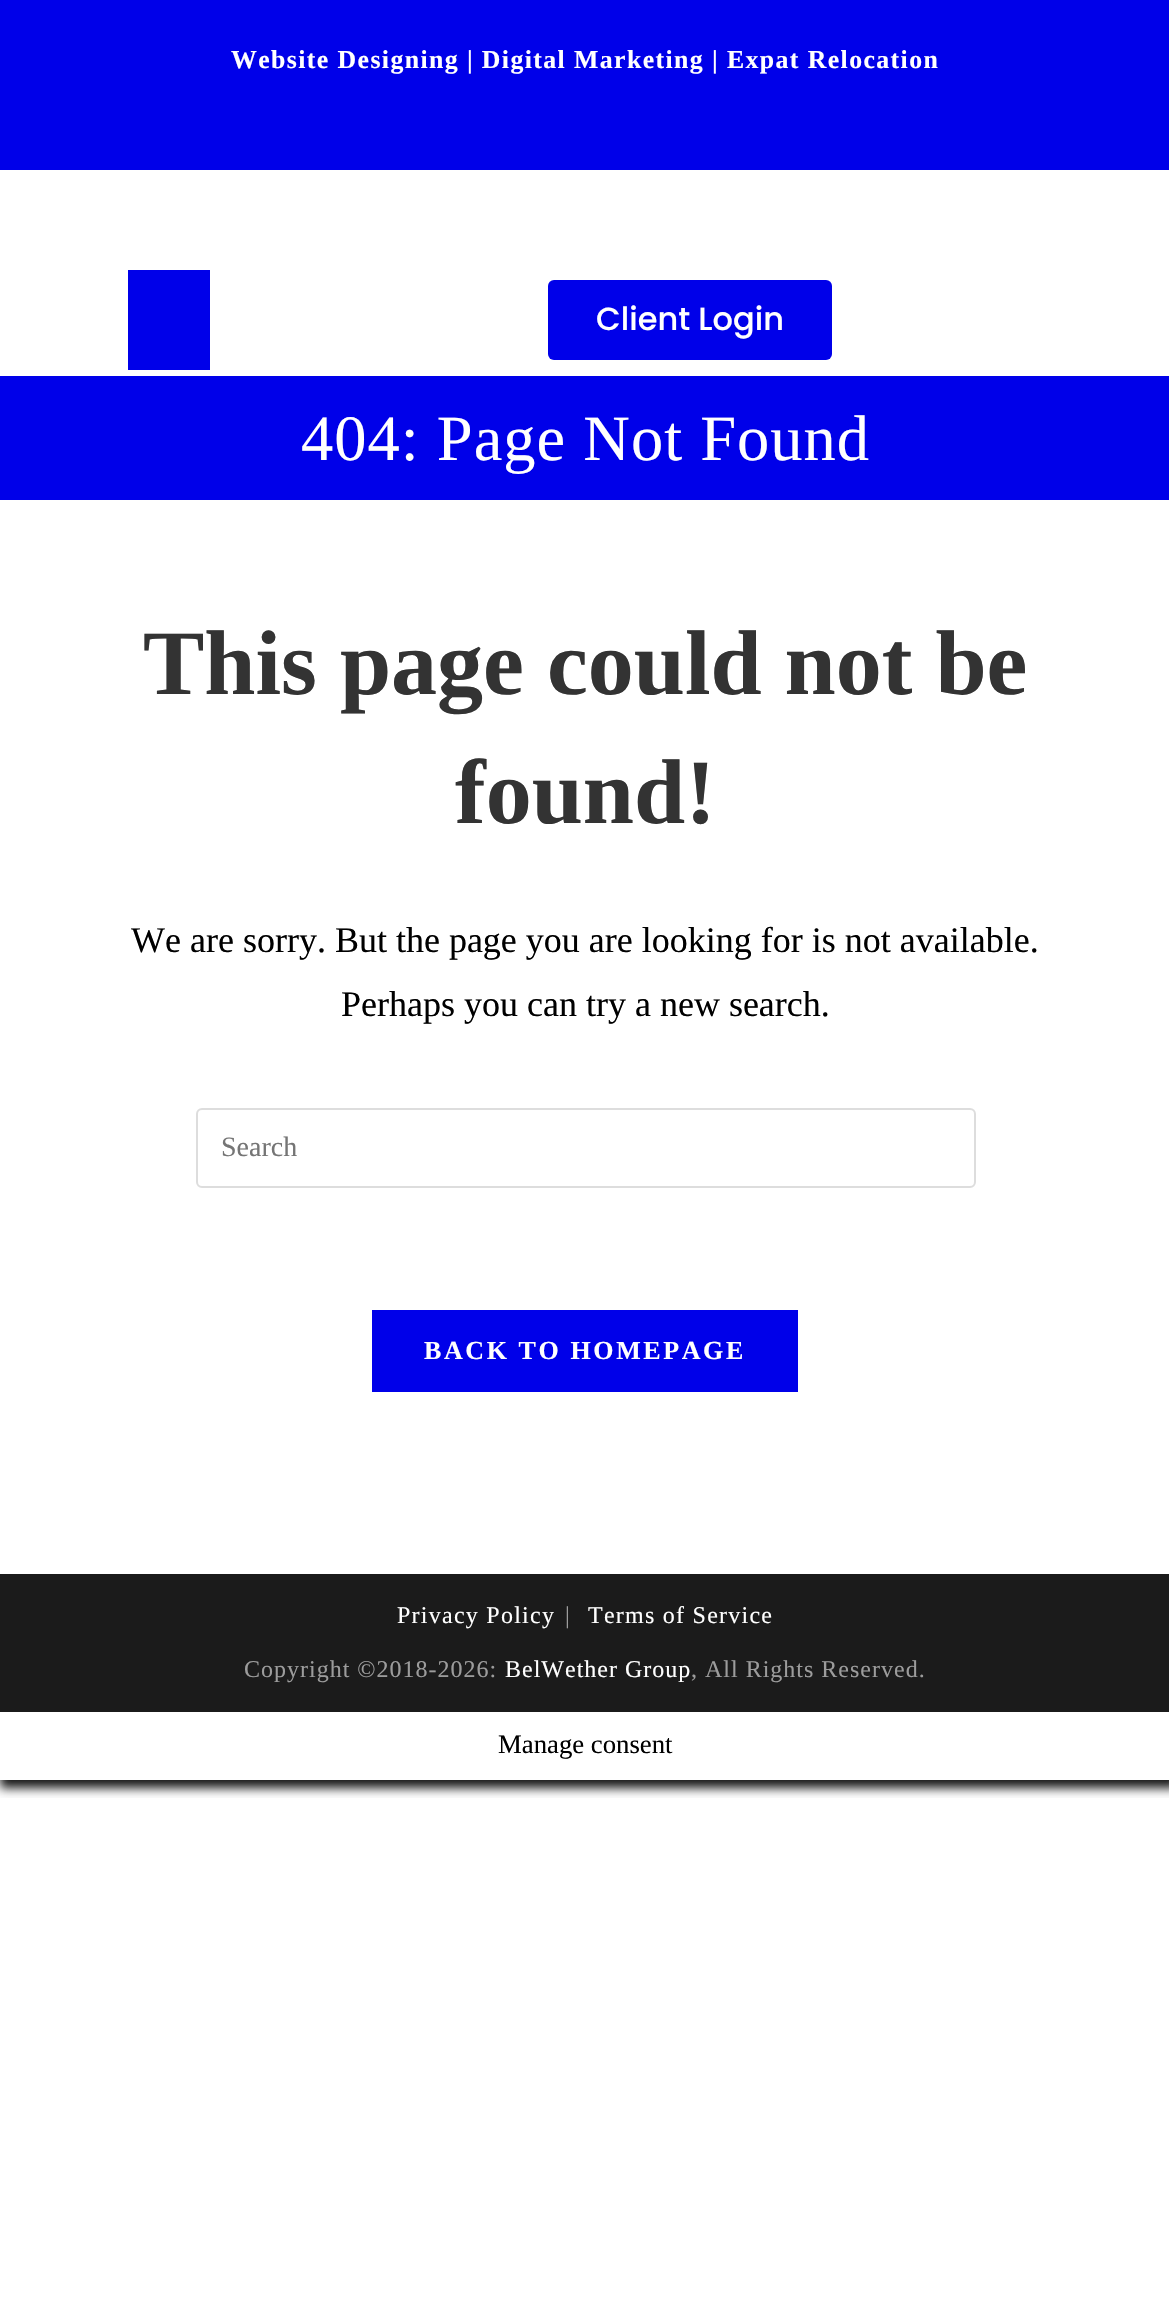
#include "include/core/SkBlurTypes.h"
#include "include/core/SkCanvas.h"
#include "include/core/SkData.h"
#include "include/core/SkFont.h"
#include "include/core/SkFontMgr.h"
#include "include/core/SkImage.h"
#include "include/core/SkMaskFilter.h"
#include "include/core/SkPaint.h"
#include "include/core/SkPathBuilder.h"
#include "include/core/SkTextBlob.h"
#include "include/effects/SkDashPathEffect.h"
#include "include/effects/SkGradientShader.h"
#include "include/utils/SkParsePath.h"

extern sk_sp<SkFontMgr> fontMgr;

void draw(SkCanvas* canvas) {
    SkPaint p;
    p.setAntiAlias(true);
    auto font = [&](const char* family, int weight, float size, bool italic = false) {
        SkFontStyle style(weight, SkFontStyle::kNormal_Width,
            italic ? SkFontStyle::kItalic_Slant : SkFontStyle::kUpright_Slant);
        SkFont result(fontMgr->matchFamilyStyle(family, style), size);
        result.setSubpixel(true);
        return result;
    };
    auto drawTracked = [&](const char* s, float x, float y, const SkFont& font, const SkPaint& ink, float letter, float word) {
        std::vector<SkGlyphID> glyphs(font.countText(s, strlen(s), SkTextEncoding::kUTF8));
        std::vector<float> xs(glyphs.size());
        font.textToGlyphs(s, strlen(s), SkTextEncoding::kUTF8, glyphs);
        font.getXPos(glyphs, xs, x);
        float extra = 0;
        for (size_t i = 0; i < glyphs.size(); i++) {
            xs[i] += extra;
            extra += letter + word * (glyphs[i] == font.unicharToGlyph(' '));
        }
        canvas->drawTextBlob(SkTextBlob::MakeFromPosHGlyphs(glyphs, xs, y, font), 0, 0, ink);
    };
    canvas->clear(0xFFFFFFFF);
    p.setColor(0xFF0000E9);
    canvas->drawRect(SkRect::MakeLTRB(0, 0, 1169, 170), p);
    auto font1 = font("Liberation Serif", 700, 25.8f);
    p.setColor(0xFFFFFFFF);
    drawTracked("Website Designing | Digital Marketing | Expat Relocation", 231, 68, font1, p, 1.4f, 0);
    p.setColor(0xFF0000E9);
    canvas->drawRect(SkRect::MakeLTRB(128, 270, 210, 370), p);
    canvas->drawRoundRect(SkRect::MakeLTRB(548, 280, 832, 360), 6, 6, p);
    auto font2 = font("Poppins", 500, 32);
    p.setColor(0xFFFFFFFF);
    canvas->drawString("Client Login", 596, 330, font2, p);
    p.setColor(0xFF0000E9);
    canvas->drawRect(SkRect::MakeLTRB(0, 376, 1169, 500), p);
    auto font3 = font("Liberation Serif", 400, 64.5f);
    p.setColor(0xFFFFFFFF);
    drawTracked("404: Page Not Found", 301, 460, font3, p, 1, 0);
    auto font4 = font("Liberation Serif", 700, 92);
    p.setColor(0xFF333333);
    canvas->drawString("This page could not be", 143, 694, font4, p);
    canvas->drawString("found!", 455, 823, font4, p);
    auto font5 = font("Liberation Serif", 400, 36);
    p.setColor(0xFF000000);
    canvas->drawString("We are sorry. But the page you are looking for is not available.", 131, 952, font5, p);
    canvas->drawString("Perhaps you can try a new search.", 341, 1016, font5, p);
    p.setStyle(SkPaint::kStroke_Style);
    p.setStrokeWidth(2);
    p.setColor(0xFFDDDDDD);
    canvas->drawRoundRect(SkRect::MakeLTRB(197, 1109, 975, 1187), 5, 5, p);
    auto font6 = font("Liberation Serif", 400, 28);
    p.setStyle(SkPaint::kFill_Style);
    p.setColor(0xFF757575);
    canvas->drawString("Search", 221, 1156, font6, p);
    p.setColor(0xFF0000E9);
    canvas->drawRect(SkRect::MakeLTRB(372, 1310, 798, 1392), p);
    auto font7 = font("Liberation Serif", 700, 26);
    p.setColor(0xFFFFFFFF);
    drawTracked("BACK TO HOMEPAGE", 424, 1359, font7, p, 2.6f, 0);
    canvas->save();
    canvas->clipRect(SkRect::MakeLTRB(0, 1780, 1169, 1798));
    p.setColor(0xFF161616);
    p.setMaskFilter(SkMaskFilter::MakeBlur(kNormal_SkBlurStyle, 5));
    canvas->drawRect(SkRect::MakeLTRB(0, 1712, 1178, 1788), p);
    p.setMaskFilter(nullptr);
    canvas->restore();
    p.setColor(0xFF1B1B1B);
    canvas->drawRect(SkRect::MakeLTRB(0, 1574, 1169, 1712), p);
    auto font8 = font("Liberation Serif", 400, 24);
    p.setColor(0xFFFFFFFF);
    drawTracked("Privacy Policy", 397, 1623, font8, p, 1.25f, 0);
    p.setColor(0xFF9C9C9C);
    drawTracked("|", 565, 1623, font8, p, 1.25f, 0);
    p.setColor(0xFFFFFFFF);
    drawTracked("Terms of Service", 588, 1623, font8, p, 1.25f, 0);
    p.setColor(0xFF9C9C9C);
    drawTracked("Copyright ©2018-2026:", 244, 1677, font8, p, 1, 0);
    p.setColor(0xFFFFFFFF);
    drawTracked("BelWether Group", 505, 1677, font8, p, 1, 0);
    p.setColor(0xFF9C9C9C);
    drawTracked(", All Rights Reserved.", 691, 1677, font8, p, 1, 0);
    auto font9 = font("Liberation Serif", 400, 26.75f);
    p.setColor(0xFF000000);
    canvas->drawString("Manage consent", 498, 1753, font9, p);
}
